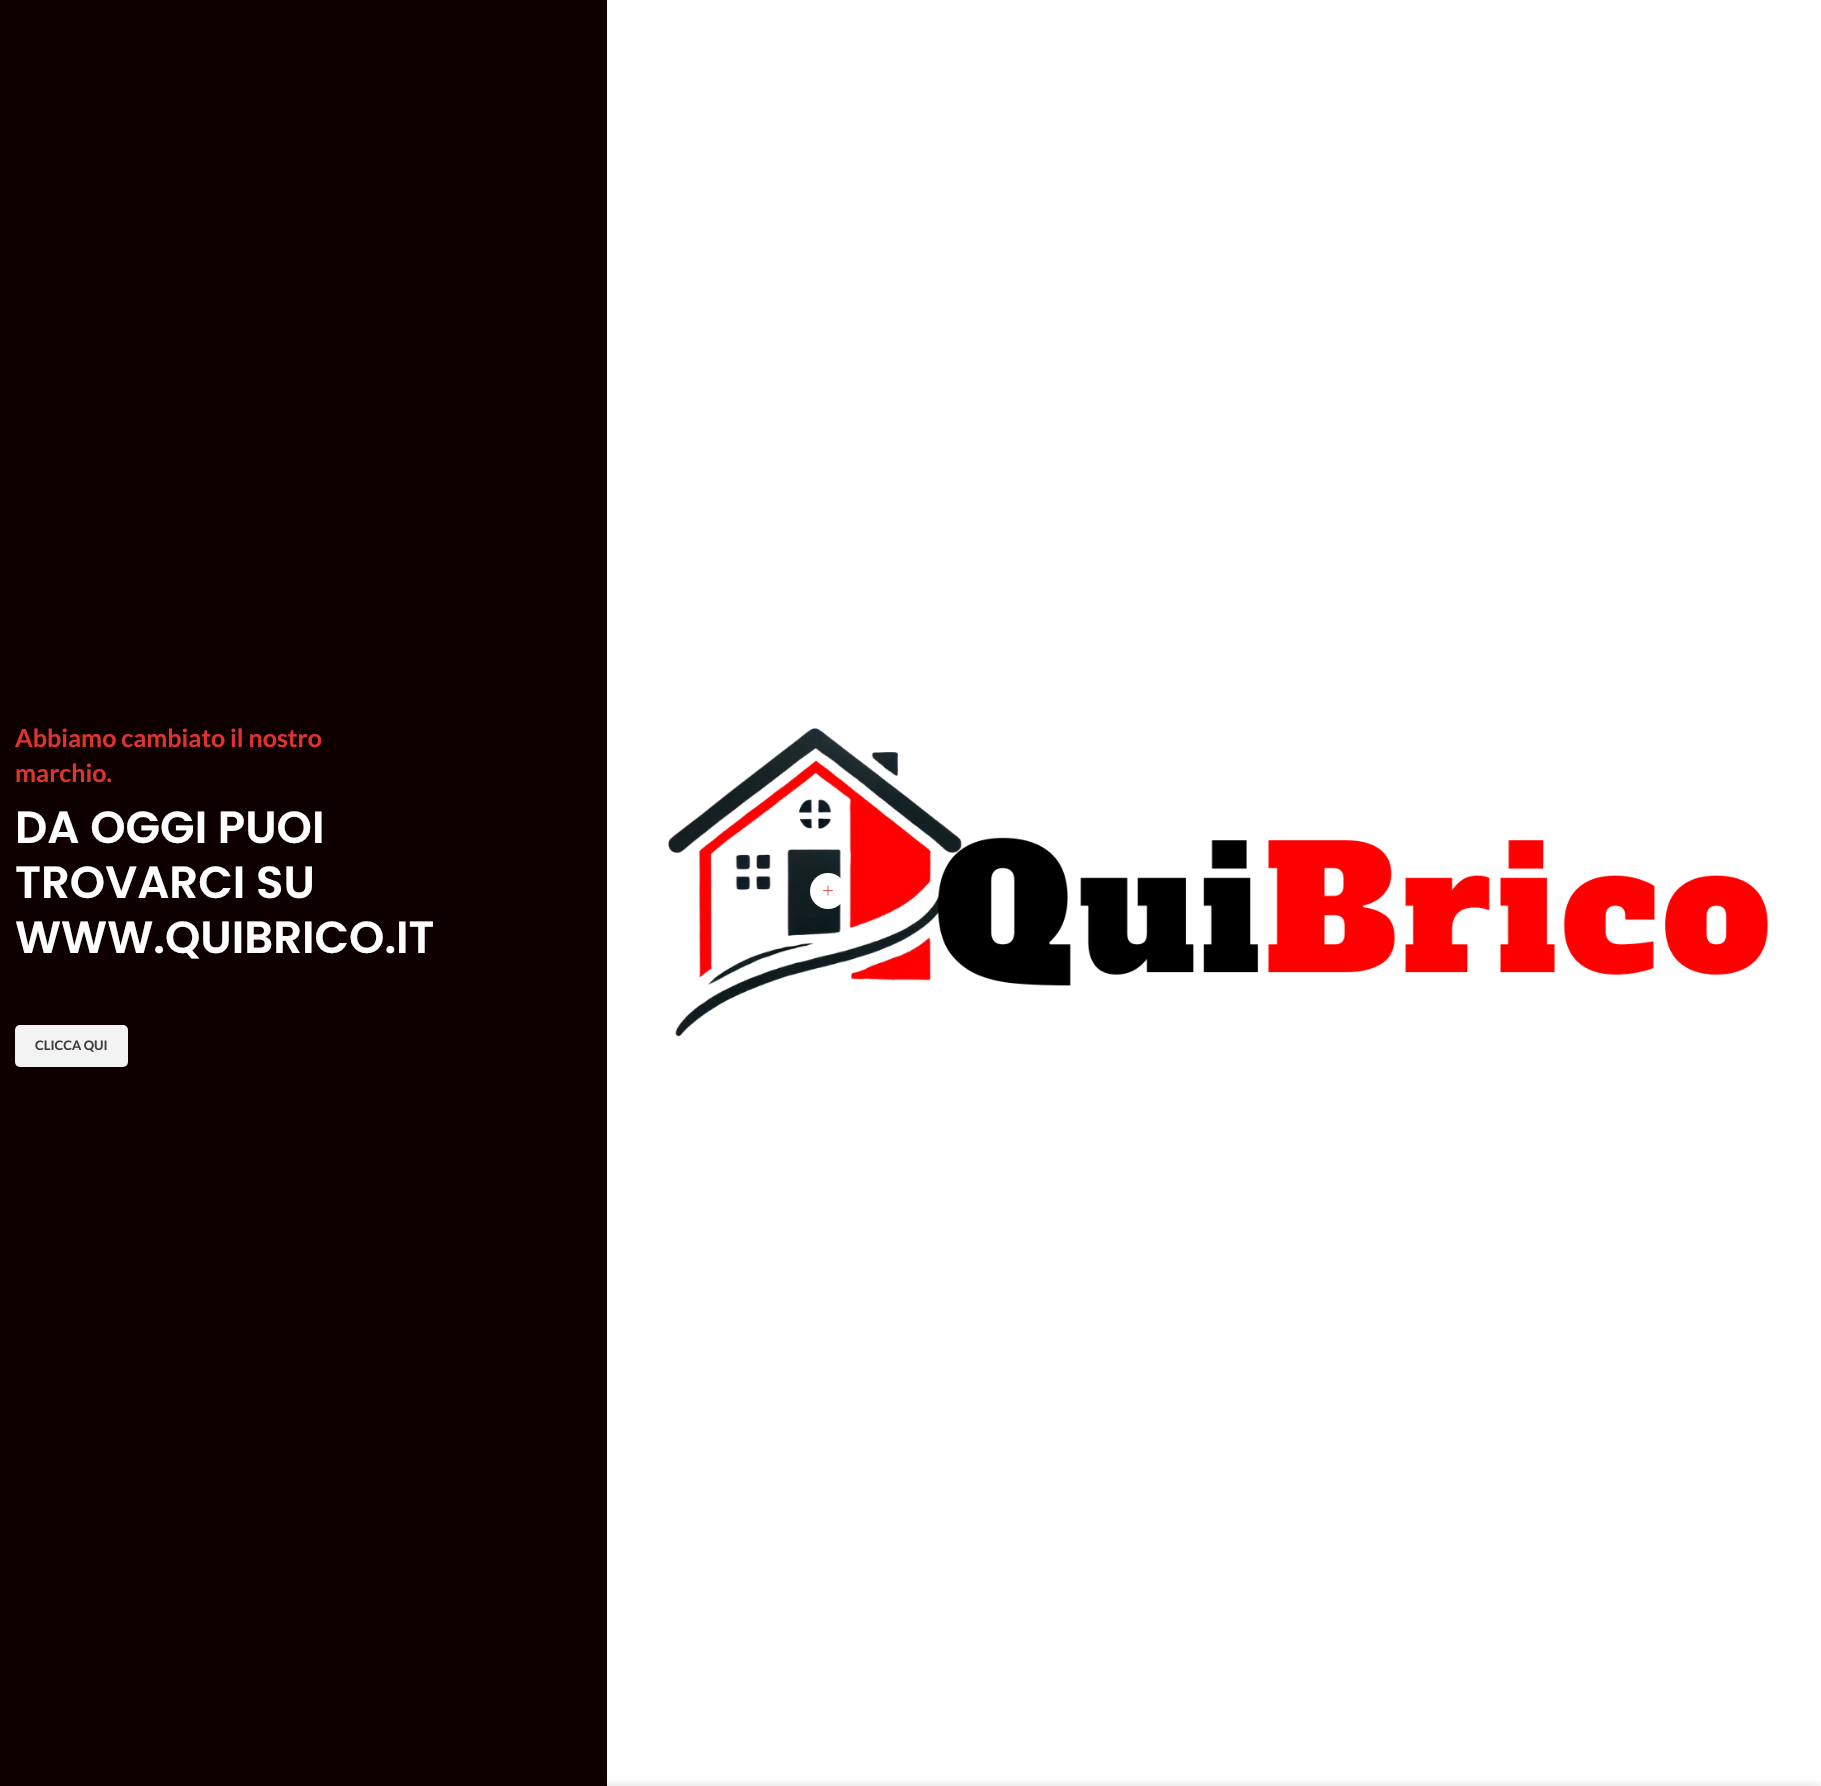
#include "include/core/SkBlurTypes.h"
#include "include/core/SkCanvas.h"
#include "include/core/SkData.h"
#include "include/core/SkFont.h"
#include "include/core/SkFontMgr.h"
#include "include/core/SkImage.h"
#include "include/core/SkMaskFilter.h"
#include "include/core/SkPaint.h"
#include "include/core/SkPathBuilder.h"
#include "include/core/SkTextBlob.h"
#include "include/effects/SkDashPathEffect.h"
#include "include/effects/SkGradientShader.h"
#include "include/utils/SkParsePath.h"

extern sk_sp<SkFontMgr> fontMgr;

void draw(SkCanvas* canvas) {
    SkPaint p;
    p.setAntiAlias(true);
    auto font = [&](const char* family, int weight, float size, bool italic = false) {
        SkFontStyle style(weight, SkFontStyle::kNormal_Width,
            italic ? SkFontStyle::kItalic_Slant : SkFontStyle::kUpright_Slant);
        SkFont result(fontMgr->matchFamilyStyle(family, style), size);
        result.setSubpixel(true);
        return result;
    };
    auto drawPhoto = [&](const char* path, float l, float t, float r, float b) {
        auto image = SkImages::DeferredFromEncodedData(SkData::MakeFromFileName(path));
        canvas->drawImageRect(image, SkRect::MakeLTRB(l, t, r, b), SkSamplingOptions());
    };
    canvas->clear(0xFFFFFFFF);
    p.setColor(0xFF0F0000);
    canvas->drawRect(SkRect::MakeLTRB(0, 0, 607, 1786), p);
    auto font1 = font("Lato", 700, 25);
    p.setColor(0xFFDD3333);
    canvas->drawString("Abbiamo cambiato il nostro", 15, 747, font1, p);
    canvas->drawString("marchio.", 15, 782, font1, p);
    auto font2 = font("Poppins", 600, 45);
    p.setColor(0xFFFFFFFF);
    {
        const struct { const char* s; float x, y; } items[] = {
            {"DA OGGI PUOI", 15, 843},
            {"TROVARCI SU", 15, 898},
            {"WWW.QUIBRICO.IT", 15, 953},
        };
        for (auto [s, x, y] : items) {
            canvas->drawString(s, x, y, font2, p);
        }
    }
    p.setColor(0xFFF3F3F3);
    canvas->drawRoundRect(SkRect::MakeLTRB(15, 1025, 128, 1067), 5, 5, p);
    auto font3 = font("Lato", 700, 13);
    p.setColor(0xFF3E3E3E);
    canvas->drawString("CLICCA QUI", 35, 1050, font3, p);
    drawPhoto("media/1.png", 668, 728, 1769, 1037);
    p.setColor(0xFFFFFFFF);
    canvas->drawCircle(828, 891, 18, p);
    drawPhoto("media/2.png", 823, 885, 833, 896);
    p.setColor(0x24000000);
    p.setMaskFilter(SkMaskFilter::MakeBlur(kNormal_SkBlurStyle, 4.5f));
    canvas->drawRect(SkRect::MakeLTRB(0, 1786, 1821, 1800), p);
    p.setMaskFilter(nullptr);
}
